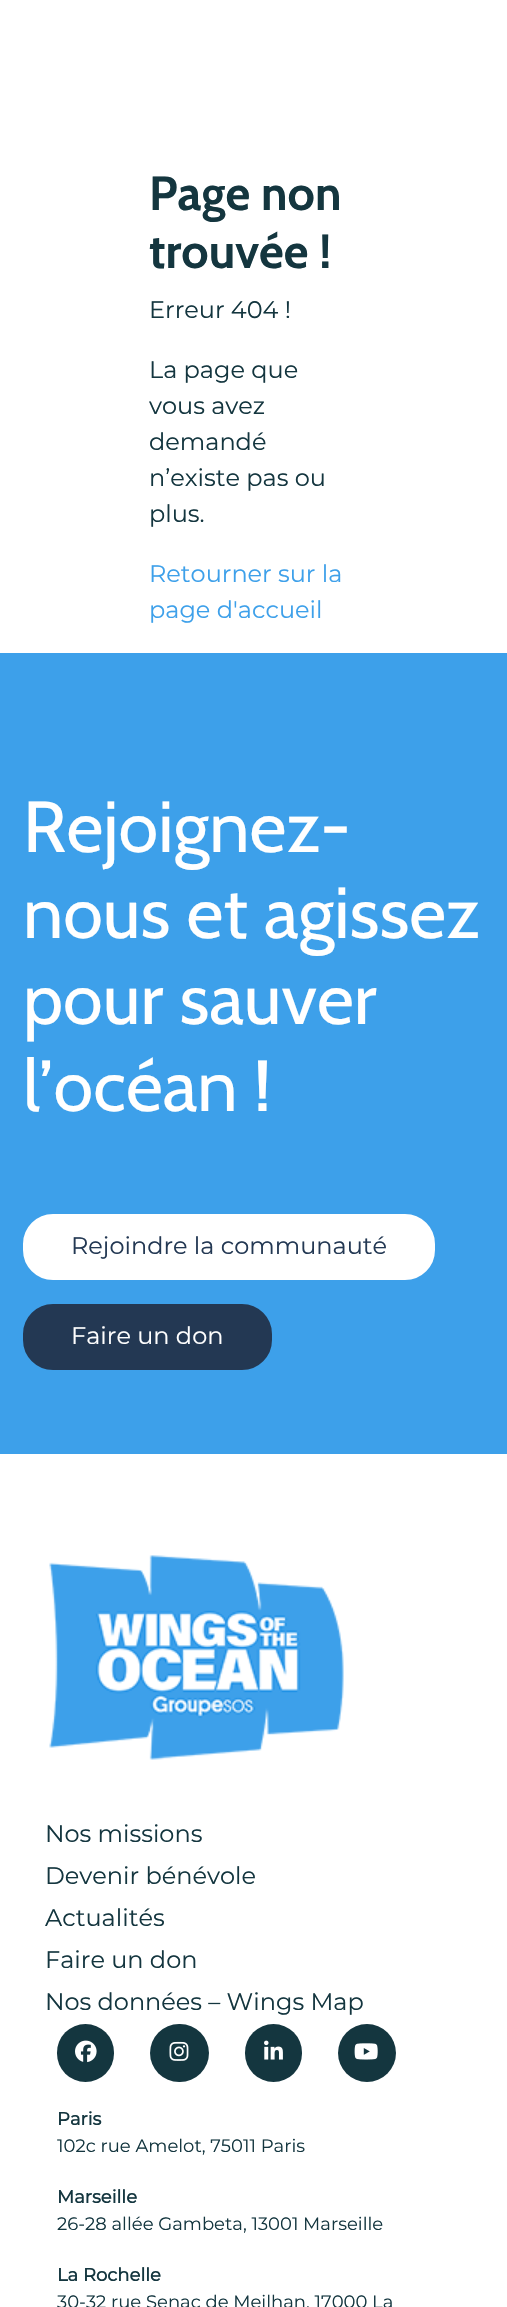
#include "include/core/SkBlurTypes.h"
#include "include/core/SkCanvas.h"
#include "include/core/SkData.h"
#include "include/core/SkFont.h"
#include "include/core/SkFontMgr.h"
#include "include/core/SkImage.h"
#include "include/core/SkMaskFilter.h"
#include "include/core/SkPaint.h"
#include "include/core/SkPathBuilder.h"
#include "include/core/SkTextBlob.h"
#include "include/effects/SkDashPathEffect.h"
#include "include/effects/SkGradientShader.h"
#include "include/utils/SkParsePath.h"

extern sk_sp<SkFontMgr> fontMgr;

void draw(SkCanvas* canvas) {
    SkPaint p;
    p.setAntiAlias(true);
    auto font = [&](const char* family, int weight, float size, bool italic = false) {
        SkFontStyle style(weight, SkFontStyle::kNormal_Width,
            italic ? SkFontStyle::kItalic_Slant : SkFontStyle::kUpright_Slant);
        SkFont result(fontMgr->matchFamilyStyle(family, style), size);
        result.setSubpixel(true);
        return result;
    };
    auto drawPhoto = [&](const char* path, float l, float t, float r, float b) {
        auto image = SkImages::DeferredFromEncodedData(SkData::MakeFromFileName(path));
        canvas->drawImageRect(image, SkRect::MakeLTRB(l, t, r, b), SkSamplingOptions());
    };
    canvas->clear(0xFFFFFFFF);
    auto font1 = font("Cabin", 700, 48);
    p.setColor(0xFF14363F);
    canvas->drawString("Page non", 149, 210, font1, p);
    canvas->drawString("trouvée !", 149, 268, font1, p);
    auto font2 = font("Montserrat", 100, 24);
    {
        const struct { const char* s; float x, y; } items[] = {
            {"Erreur 404 !", 149, 318},
            {"La page que", 149, 378},
            {"vous avez", 149, 414},
            {"demandé", 149, 450},
            {"n’existe pas ou", 149, 486},
            {"plus.", 149, 522},
        };
        for (auto [s, x, y] : items) {
            canvas->drawString(s, x, y, font2, p);
        }
    }
    p.setColor(0xFF3DA0EA);
    canvas->drawString("Retourner sur la", 149, 582, font2, p);
    canvas->drawString("page d'accueil", 149, 618, font2, p);
    canvas->drawRect(SkRect::MakeLTRB(0, 653, 507, 1454), p);
    auto font3 = font("Cabin", 400, 72);
    p.setColor(0xFFFFFFFF);
    {
        const struct { const char* s; float x, y; } items[] = {
            {"Rejoignez-", 23, 852},
            {"nous et agissez", 23, 938},
            {"pour sauver", 23, 1024},
            {"l’océan !", 23, 1111},
        };
        for (auto [s, x, y] : items) {
            canvas->drawString(s, x, y, font3, p);
        }
    }
    canvas->drawRoundRect(SkRect::MakeLTRB(24.5f, 1215.5f, 433.5f, 1278.5f), 28.5f, 28.5f, p);
    p.setStyle(SkPaint::kStroke_Style);
    p.setStrokeWidth(3);
    canvas->drawRoundRect(SkRect::MakeLTRB(24.5f, 1215.5f, 433.5f, 1278.5f), 28.5f, 28.5f, p);
    p.setStyle(SkPaint::kFill_Style);
    p.setColor(0xFF233853);
    canvas->drawString("Rejoindre la communauté", 71, 1254, font2, p);
    canvas->drawRoundRect(SkRect::MakeLTRB(24.5f, 1305.5f, 270.5f, 1368.5f), 28.5f, 28.5f, p);
    p.setStyle(SkPaint::kStroke_Style);
    canvas->drawRoundRect(SkRect::MakeLTRB(24.5f, 1305.5f, 270.5f, 1368.5f), 28.5f, 28.5f, p);
    p.setStyle(SkPaint::kFill_Style);
    p.setColor(0xFFFFFFFF);
    canvas->drawString("Faire un don", 71, 1344, font2, p);
    drawPhoto("media/1.png", 49, 1555, 344, 1760);
    p.setColor(0xFF14363F);
    {
        const struct { const char* s; float x, y; } items[] = {
            {"Nos missions", 45, 1842},
            {"Devenir bénévole", 45, 1884},
            {"Actualités", 45, 1926},
            {"Faire un don", 45, 1968},
            {"Nos données – Wings Map", 45, 2010},
        };
        for (auto [s, x, y] : items) {
            canvas->drawString(s, x, y, font2, p);
        }
    }
    canvas->drawRoundRect(SkRect::MakeLTRB(57, 2024, 114, 2082), 28.5f, 28.5f, p);
    drawPhoto("media/2.png", 75, 2040, 97, 2063);
    canvas->drawRoundRect(SkRect::MakeLTRB(150, 2024, 209, 2082), 29, 29, p);
    drawPhoto("media/3.png", 169, 2041, 189, 2061);
    canvas->drawRoundRect(SkRect::MakeLTRB(245, 2024, 302, 2082), 28.5f, 28.5f, p);
    drawPhoto("media/4.png", 264, 2040, 283, 2060);
    canvas->drawCircle(367, 2053, 29, p);
    drawPhoto("media/5.png", 354, 2043, 378, 2060);
    auto font4 = font("Montserrat", 700, 18);
    canvas->drawString("Paris", 57, 2125, font4, p);
    auto font5 = font("Montserrat", 100, 18);
    canvas->drawString("102c rue Amelot, 75011 Paris", 57, 2152, font5, p);
    canvas->drawString("Marseille", 57, 2203, font4, p);
    canvas->drawString("26-28 allée Gambeta, 13001 Marseille", 57, 2230, font5, p);
    canvas->drawString("La Rochelle", 57, 2281, font4, p);
    canvas->drawString("30-32 rue Senac de Meilhan, 17000 La", 57, 2308, font5, p);
}
